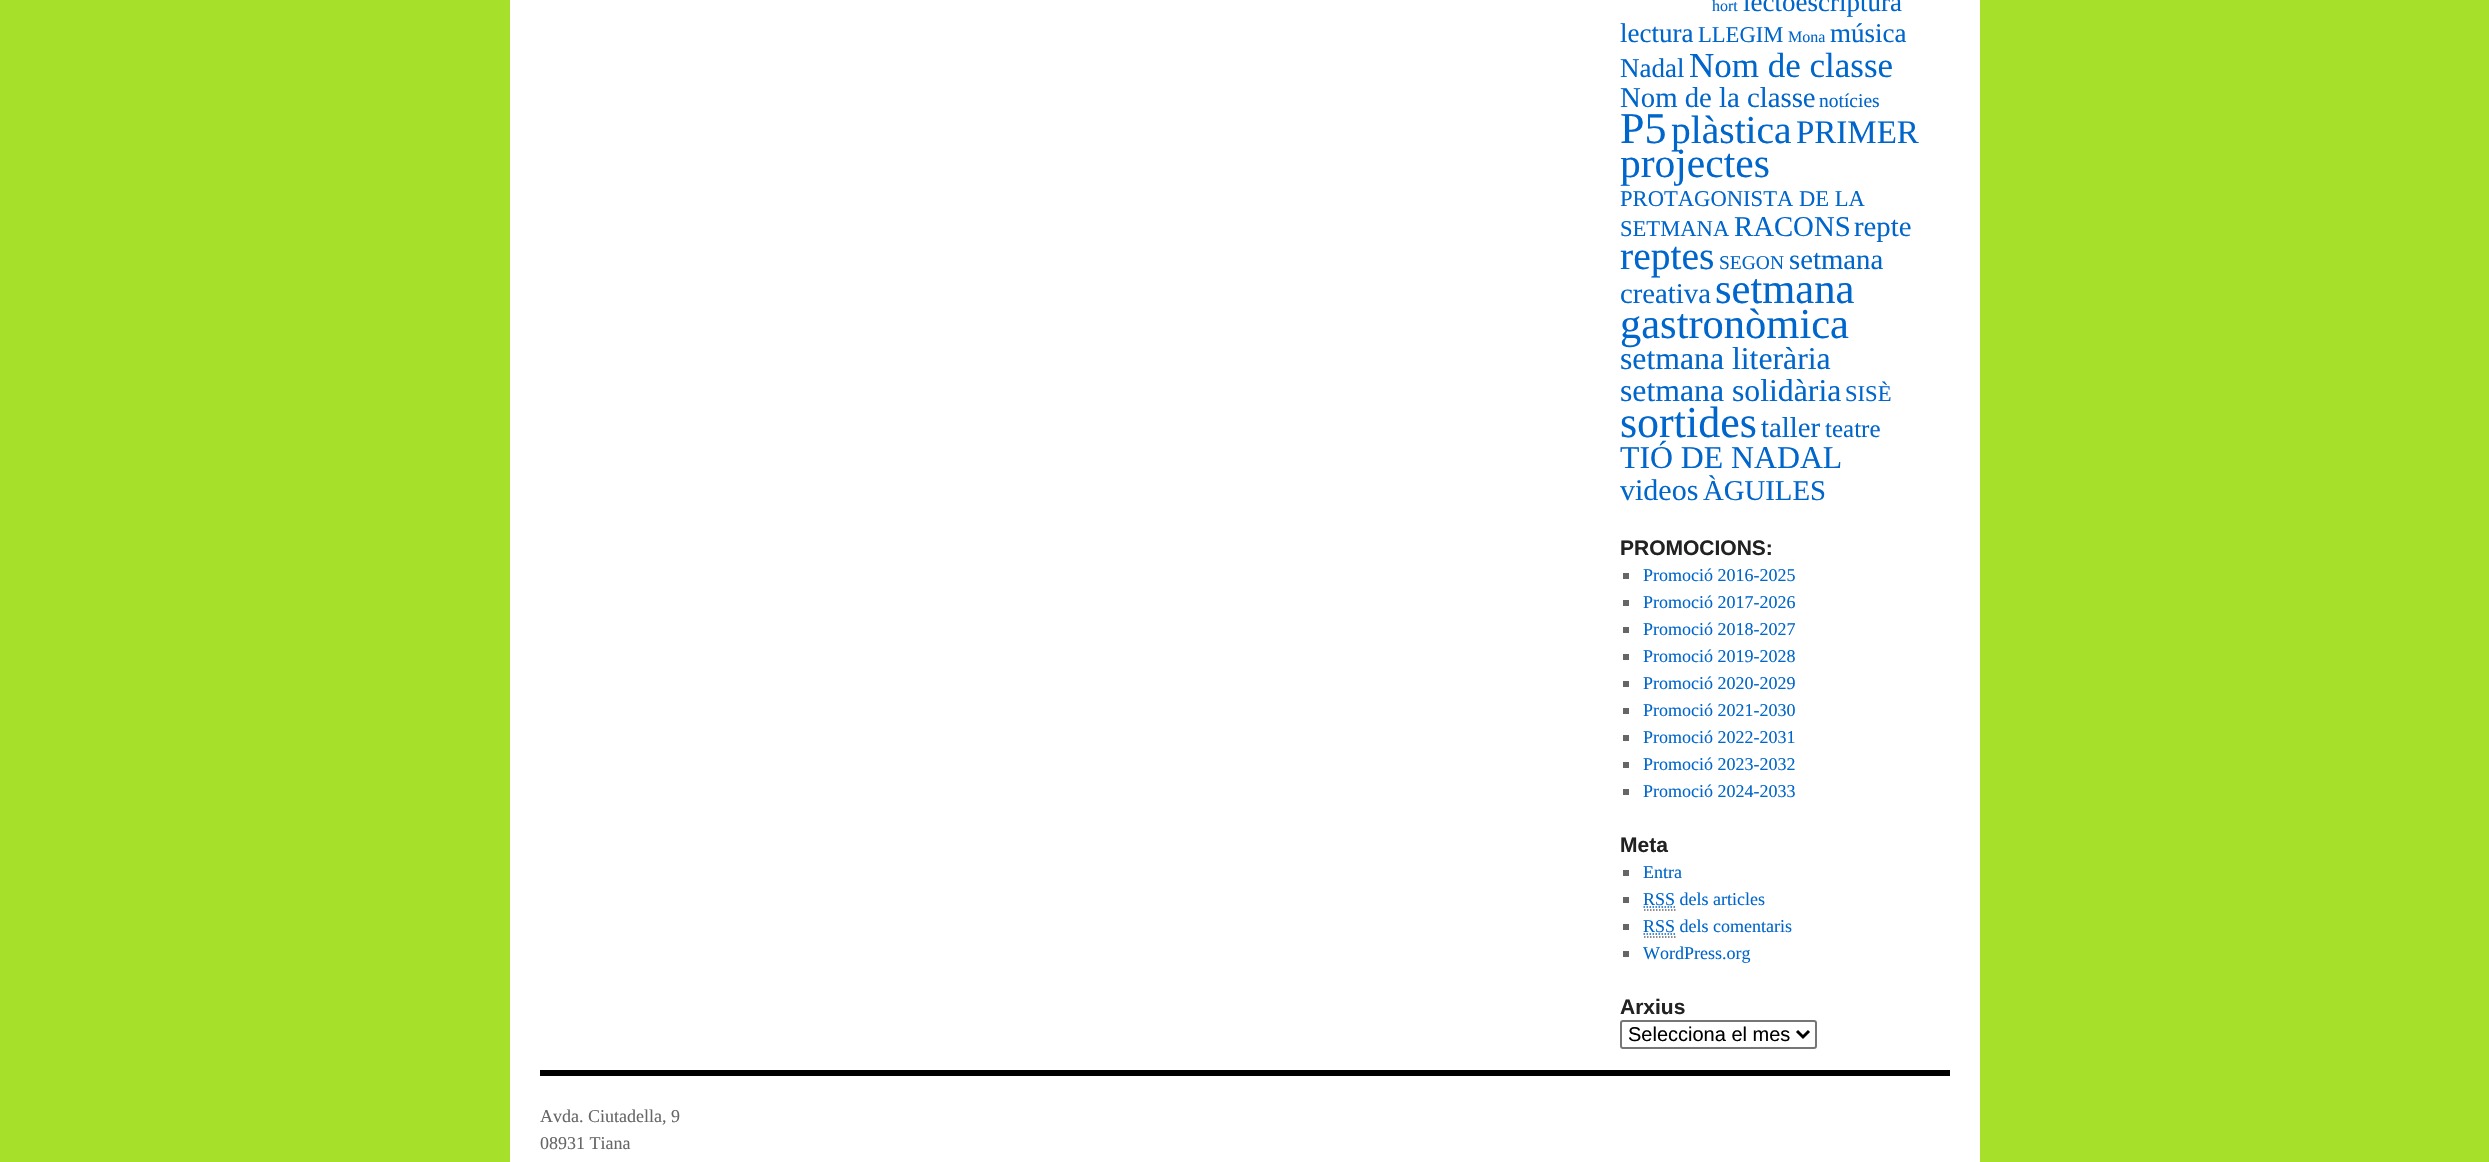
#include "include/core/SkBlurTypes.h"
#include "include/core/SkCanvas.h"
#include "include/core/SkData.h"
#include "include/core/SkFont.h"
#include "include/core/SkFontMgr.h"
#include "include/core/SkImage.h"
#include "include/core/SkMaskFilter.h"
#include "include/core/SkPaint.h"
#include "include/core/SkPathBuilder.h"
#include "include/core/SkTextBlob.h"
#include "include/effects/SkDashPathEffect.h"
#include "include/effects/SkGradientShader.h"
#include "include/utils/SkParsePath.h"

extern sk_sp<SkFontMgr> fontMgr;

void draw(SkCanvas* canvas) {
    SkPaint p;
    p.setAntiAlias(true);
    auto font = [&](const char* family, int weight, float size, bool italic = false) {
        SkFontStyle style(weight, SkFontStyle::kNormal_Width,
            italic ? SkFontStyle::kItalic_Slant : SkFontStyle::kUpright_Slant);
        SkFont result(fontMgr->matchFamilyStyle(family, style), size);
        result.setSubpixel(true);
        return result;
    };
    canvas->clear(0xFFA6E02A);
    p.setColor(0xFFFFFFFF);
    canvas->drawRect(SkRect::MakeLTRB(510, 0, 1980, 1162), p);
    auto font1 = font("Liberation Serif", 400, 16);
    p.setColor(0xFF0066CC);
    canvas->drawString("hort", 1712, 11, font1, p);
    auto font2 = font("Liberation Serif", 400, 27);
    canvas->drawString("lectoescriptura", 1743, 11, font2, p);
    canvas->drawString("lectura", 1620, 42, font2, p);
    auto font3 = font("Liberation Serif", 400, 22.6f);
    canvas->drawString("LLEGIM", 1698, 42, font3, p);
    canvas->drawString("Mona", 1788, 42, font1, p);
    canvas->drawString("música", 1830, 42, font2, p);
    canvas->drawString("Nadal", 1620, 77, font2, p);
    auto font4 = font("Liberation Serif", 400, 35);
    canvas->drawString("Nom de classe", 1689, 77, font4, p);
    auto font5 = font("Liberation Serif", 400, 28.75f);
    canvas->drawString("Nom de la classe", 1620, 107, font5, p);
    auto font6 = font("Liberation Serif", 400, 19.5f);
    canvas->drawString("notícies", 1819, 107, font6, p);
    auto font7 = font("Liberation Serif", 400, 44);
    canvas->drawString("P5", 1620, 143, font7, p);
    auto font8 = font("Liberation Serif", 400, 39.5f);
    canvas->drawString("plàstica", 1671, 143, font8, p);
    auto font9 = font("Liberation Serif", 400, 33);
    canvas->drawString("PRIMER", 1796, 143, font9, p);
    auto font10 = font("Liberation Serif", 400, 41.5f);
    canvas->drawString("projectes", 1620, 177, font10, p);
    canvas->drawString("PROTAGONISTA DE LA", 1620, 206, font3, p);
    canvas->drawString("SETMANA", 1620, 236, font3, p);
    canvas->drawString("RACONS", 1734, 236, font5, p);
    canvas->drawString("repte", 1854, 236, font5, p);
    canvas->drawString("reptes", 1620, 269, font8, p);
    canvas->drawString("SEGON", 1719, 269, font6, p);
    canvas->drawString("setmana", 1789, 269, font5, p);
    canvas->drawString("creativa", 1620, 303, font5, p);
    auto font11 = font("Liberation Serif", 400, 42.5f);
    canvas->drawString("setmana", 1715, 303, font11, p);
    canvas->drawString("gastronòmica", 1620, 338, font11, p);
    auto font12 = font("Liberation Serif", 400, 31.75f);
    canvas->drawString("setmana literària", 1620, 369, font12, p);
    canvas->drawString("setmana solidària", 1620, 401, font12, p);
    canvas->drawString("SISÈ", 1845, 401, font3, p);
    canvas->drawString("sortides", 1620, 437, font7, p);
    canvas->drawString("taller", 1761, 437, font5, p);
    auto font13 = font("Liberation Serif", 400, 25);
    canvas->drawString("teatre", 1825, 437, font13, p);
    canvas->drawString("TIÓ DE NADAL", 1620, 468, font12, p);
    auto font14 = font("Liberation Serif", 400, 30);
    canvas->drawString("videos", 1620, 500, font14, p);
    canvas->drawString("ÀGUILES", 1703, 500, font5, p);
    auto font15 = font("Liberation Sans", 700, 21);
    p.setColor(0xFF222222);
    canvas->drawString("PROMOCIONS:", 1620, 555, font15, p);
    p.setColor(0xFF666666);
    canvas->drawRect(SkRect::MakeLTRB(1623, 573, 1629, 579), p);
    auto font16 = font("Liberation Serif", 400, 18);
    p.setColor(0xFF0066CC);
    canvas->drawString("Promoció 2016-2025", 1643, 581, font16, p);
    p.setColor(0xFF666666);
    canvas->drawRect(SkRect::MakeLTRB(1623, 600, 1629, 606), p);
    p.setColor(0xFF0066CC);
    canvas->drawString("Promoció 2017-2026", 1643, 608, font16, p);
    p.setColor(0xFF666666);
    canvas->drawRect(SkRect::MakeLTRB(1623, 627, 1629, 633), p);
    p.setColor(0xFF0066CC);
    canvas->drawString("Promoció 2018-2027", 1643, 635, font16, p);
    p.setColor(0xFF666666);
    canvas->drawRect(SkRect::MakeLTRB(1623, 654, 1629, 660), p);
    p.setColor(0xFF0066CC);
    canvas->drawString("Promoció 2019-2028", 1643, 662, font16, p);
    p.setColor(0xFF666666);
    canvas->drawRect(SkRect::MakeLTRB(1623, 681, 1629, 687), p);
    p.setColor(0xFF0066CC);
    canvas->drawString("Promoció 2020-2029", 1643, 689, font16, p);
    p.setColor(0xFF666666);
    canvas->drawRect(SkRect::MakeLTRB(1623, 708, 1629, 714), p);
    p.setColor(0xFF0066CC);
    canvas->drawString("Promoció 2021-2030", 1643, 716, font16, p);
    p.setColor(0xFF666666);
    canvas->drawRect(SkRect::MakeLTRB(1623, 735, 1629, 741), p);
    p.setColor(0xFF0066CC);
    canvas->drawString("Promoció 2022-2031", 1643, 743, font16, p);
    p.setColor(0xFF666666);
    canvas->drawRect(SkRect::MakeLTRB(1623, 762, 1629, 768), p);
    p.setColor(0xFF0066CC);
    canvas->drawString("Promoció 2023-2032", 1643, 770, font16, p);
    p.setColor(0xFF666666);
    canvas->drawRect(SkRect::MakeLTRB(1623, 789, 1629, 795), p);
    p.setColor(0xFF0066CC);
    canvas->drawString("Promoció 2024-2033", 1643, 797, font16, p);
    p.setColor(0xFF222222);
    canvas->drawString("Meta", 1620, 852, font15, p);
    p.setColor(0xFF666666);
    canvas->drawRect(SkRect::MakeLTRB(1623, 870, 1629, 876), p);
    p.setColor(0xFF0066CC);
    canvas->drawString("Entra", 1643, 878, font16, p);
    p.setColor(0xFF666666);
    canvas->drawRect(SkRect::MakeLTRB(1623, 897, 1629, 903), p);
    p.setColor(0xFF0066CC);
    canvas->drawString("RSS dels articles", 1643, 905, font16, p);
    p.setStyle(SkPaint::kStroke_Style);
    p.setStrokeWidth(1.5f);
    p.setColor(0xFF666666);
    p.setPathEffect(SkDashPathEffect::Make({{1.5f, 1.5f}}, 0));
    canvas->drawPath(SkPathBuilder().moveTo(1644, 910).lineTo(1675.5f, 910).detach(), p);
    p.setPathEffect(nullptr);
    p.setColor(0xFF0066CC);
    p.setPathEffect(SkDashPathEffect::Make({{1.5f, 1.5f}}, 0));
    canvas->drawPath(SkPathBuilder().moveTo(1643.5f, 907).lineTo(1675.5f, 907).detach(), p);
    p.setPathEffect(nullptr);
    p.setStyle(SkPaint::kFill_Style);
    p.setColor(0xFF666666);
    canvas->drawRect(SkRect::MakeLTRB(1623, 924, 1629, 930), p);
    p.setColor(0xFF0066CC);
    canvas->drawString("RSS dels comentaris", 1643, 932, font16, p);
    p.setStyle(SkPaint::kStroke_Style);
    p.setColor(0xFF666666);
    p.setPathEffect(SkDashPathEffect::Make({{1.5f, 1.5f}}, 0));
    canvas->drawPath(SkPathBuilder().moveTo(1644, 937).lineTo(1675.5f, 937).detach(), p);
    p.setPathEffect(nullptr);
    p.setColor(0xFF0066CC);
    p.setPathEffect(SkDashPathEffect::Make({{1.5f, 1.5f}}, 0));
    canvas->drawPath(SkPathBuilder().moveTo(1643.5f, 934).lineTo(1675.5f, 934).detach(), p);
    p.setPathEffect(nullptr);
    p.setStyle(SkPaint::kFill_Style);
    p.setColor(0xFF666666);
    canvas->drawRect(SkRect::MakeLTRB(1623, 951, 1629, 957), p);
    p.setColor(0xFF0066CC);
    canvas->drawString("WordPress.org", 1643, 959, font16, p);
    p.setColor(0xFF222222);
    canvas->drawString("Arxius", 1620, 1014, font15, p);
    p.setStyle(SkPaint::kStroke_Style);
    p.setStrokeWidth(2);
    p.setColor(0xFF767676);
    canvas->drawRoundRect(SkRect::MakeLTRB(1621, 1021, 1816, 1048), 2, 2, p);
    p.setStrokeWidth(3);
    p.setColor(0xFF000000);
    canvas->drawPath(SkPathBuilder().moveTo(1797, 1031).lineTo(1803, 1037).lineTo(1809, 1031).detach(), p);
    auto font17 = font("Liberation Sans", 400, 20);
    p.setStyle(SkPaint::kFill_Style);
    canvas->drawString("Selecciona el mes", 1628, 1041, font17, p);
    canvas->drawRect(SkRect::MakeLTRB(540, 1070, 1950, 1076), p);
    p.setColor(0xFF666666);
    canvas->drawString("Avda. Ciutadella, 9", 540, 1122, font16, p);
    canvas->drawString("08931 Tiana", 540, 1149, font16, p);
}
